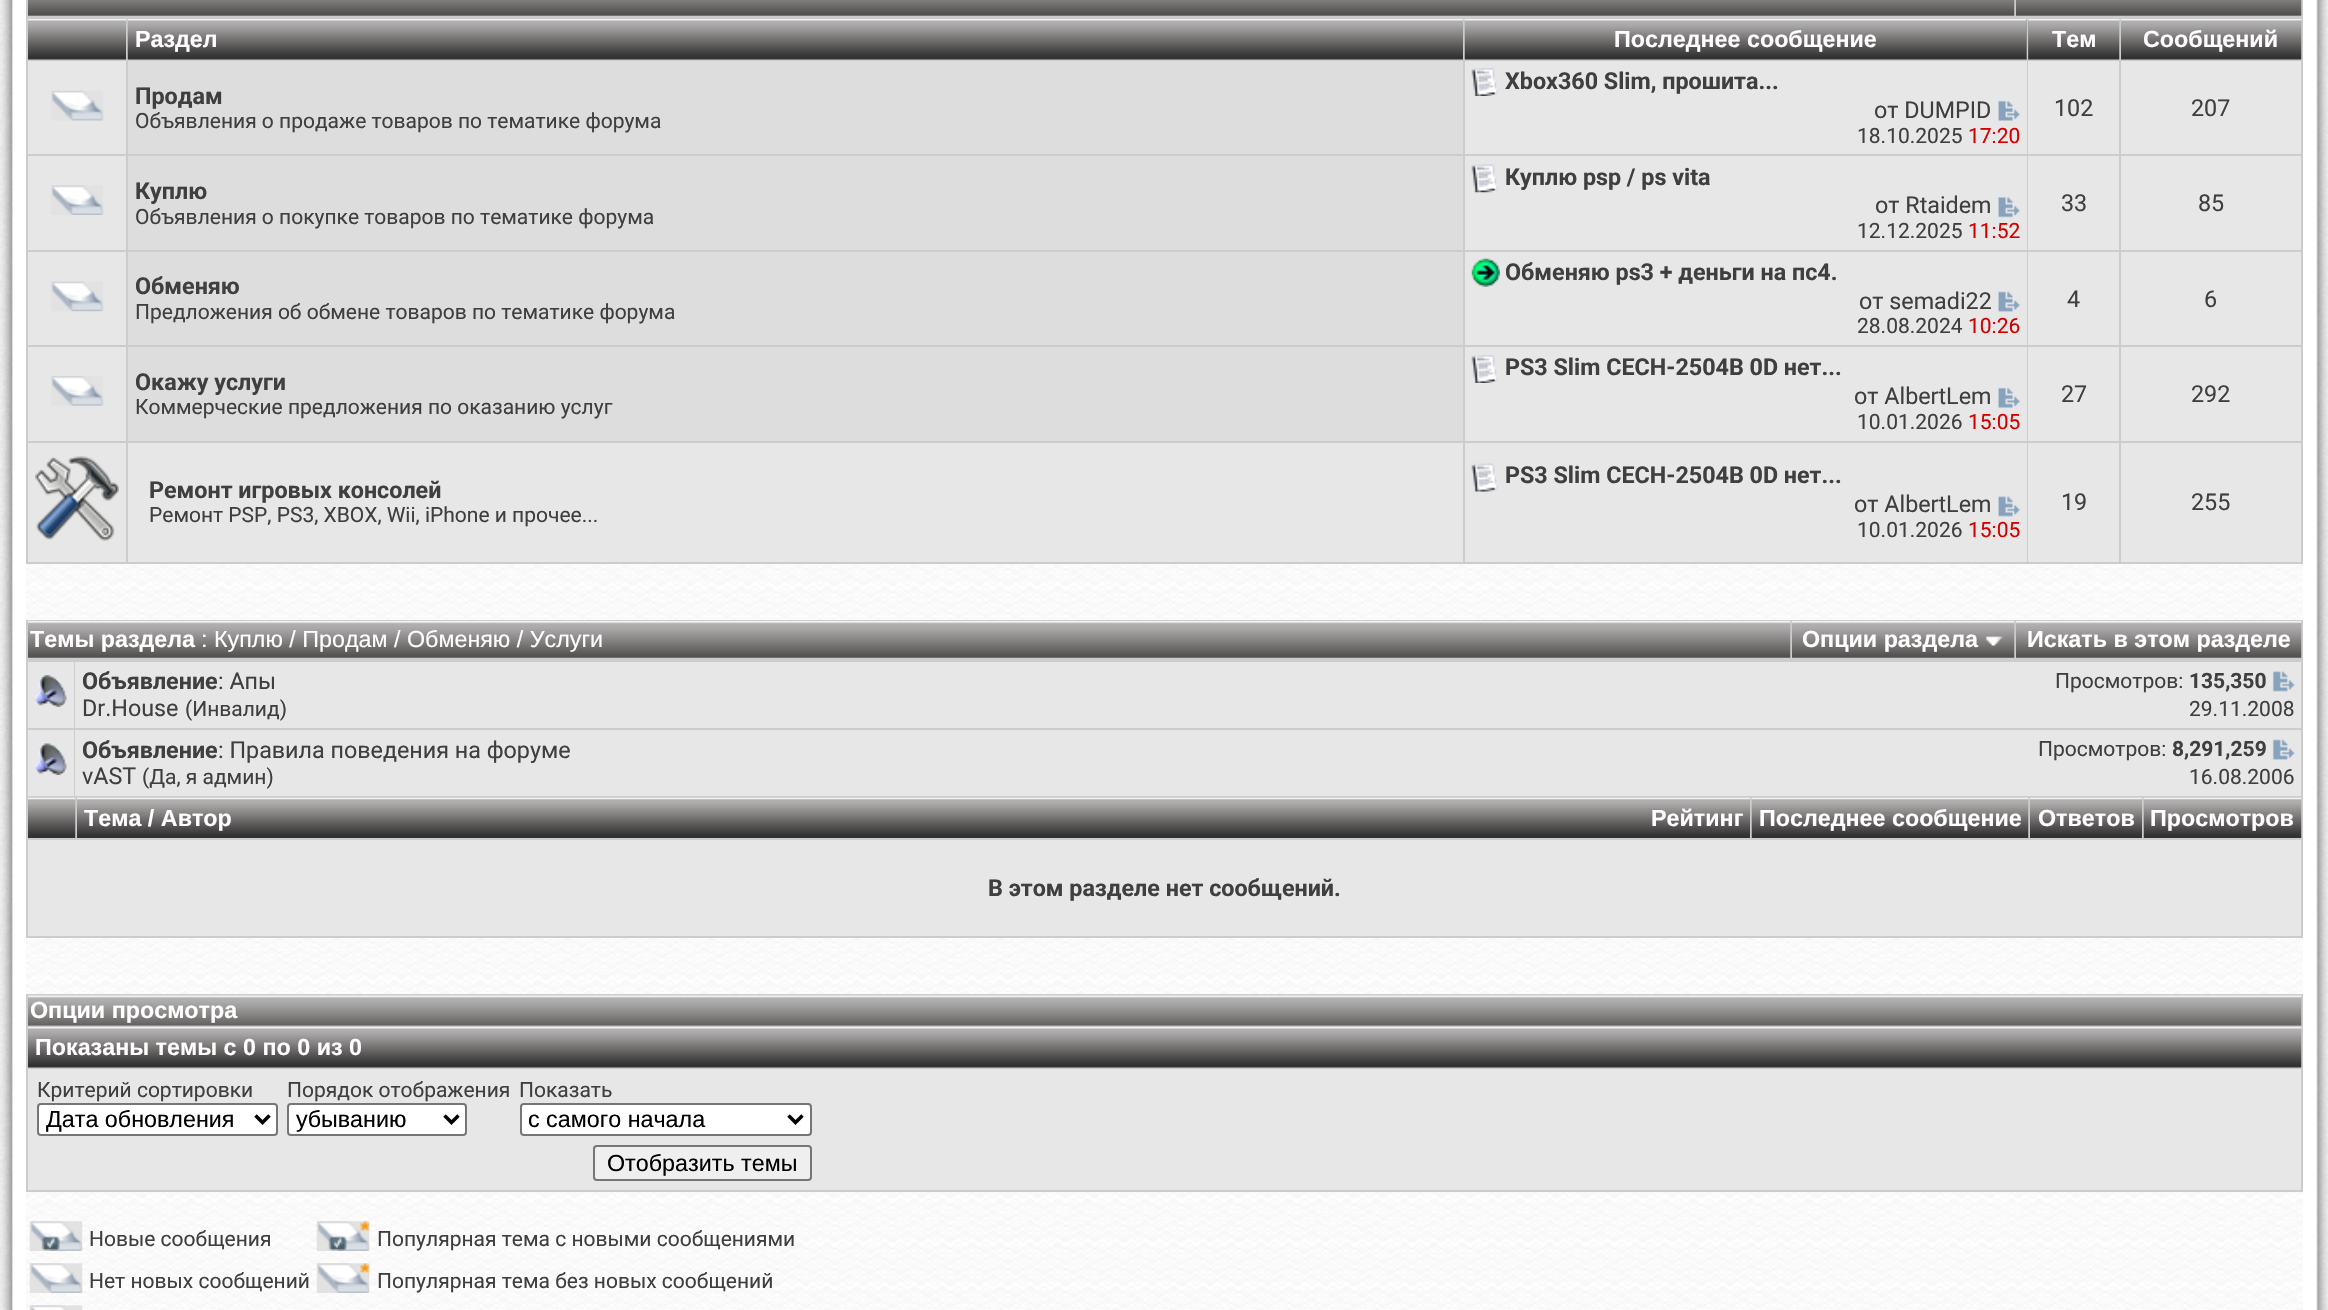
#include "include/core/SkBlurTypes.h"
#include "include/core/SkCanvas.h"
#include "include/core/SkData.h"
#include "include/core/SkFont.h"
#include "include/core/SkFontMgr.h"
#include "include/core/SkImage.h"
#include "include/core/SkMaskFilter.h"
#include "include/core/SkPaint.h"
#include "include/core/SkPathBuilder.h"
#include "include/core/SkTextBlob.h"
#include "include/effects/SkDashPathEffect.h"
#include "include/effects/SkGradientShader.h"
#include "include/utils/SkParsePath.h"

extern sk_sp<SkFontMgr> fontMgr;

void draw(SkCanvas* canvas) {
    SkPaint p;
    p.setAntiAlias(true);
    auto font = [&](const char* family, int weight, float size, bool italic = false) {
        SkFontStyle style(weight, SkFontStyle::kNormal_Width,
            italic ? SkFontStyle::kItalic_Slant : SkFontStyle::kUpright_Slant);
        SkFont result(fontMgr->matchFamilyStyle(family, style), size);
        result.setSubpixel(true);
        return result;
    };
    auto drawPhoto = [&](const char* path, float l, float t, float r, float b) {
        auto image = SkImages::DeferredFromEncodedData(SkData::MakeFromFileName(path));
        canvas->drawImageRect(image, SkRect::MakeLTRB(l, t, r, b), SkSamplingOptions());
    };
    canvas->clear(0xFFFFFFFF);
    drawPhoto("media/1.png", 0, 0, 2328, 1310);
    drawPhoto("media/2.png", 0, 0, 26, 1310);
    drawPhoto("media/3.png", 26, 564, 2303, 1310);
    p.setColor(0xFFCCCCCC);
    canvas->drawRect(SkRect::MakeLTRB(26, 0, 2303, 564), p);
    p.setColor(0xFF9C9C9C);
    canvas->drawRect(SkRect::MakeLTRB(28, 15, 2014, 16), p);
    drawPhoto("media/4.png", 28, 0, 2015, 16);
    canvas->drawRect(SkRect::MakeLTRB(2016, 15, 2301, 16), p);
    drawPhoto("media/5.png", 2016, 0, 2302, 16);
    canvas->drawRect(SkRect::MakeLTRB(28, 59, 126, 60), p);
    drawPhoto("media/6.png", 28, 19, 126, 60);
    canvas->drawRect(SkRect::MakeLTRB(128, 59, 1463, 60), p);
    drawPhoto("media/7.png", 127, 19, 1463, 60);
    auto font1 = font("Liberation Sans", 700, 23.3f);
    p.setColor(0xFFFFFFFF);
    canvas->drawString("Раздел", 135, 47, font1, p);
    p.setColor(0xFF9C9C9C);
    canvas->drawRect(SkRect::MakeLTRB(1465, 19, 2027, 60), p);
    drawPhoto("media/8.png", 1464, 19, 2027, 60);
    p.setColor(0xFFFFFFFF);
    canvas->drawString("Последнее сообщение", 1614, 47, font1, p);
    p.setColor(0xFF9C9C9C);
    canvas->drawRect(SkRect::MakeLTRB(2028, 19, 2119, 60), p);
    drawPhoto("media/9.png", 2028, 19, 2120, 60);
    p.setColor(0xFFFFFFFF);
    canvas->drawString("Тем", 2052, 47, font1, p);
    p.setColor(0xFF9C9C9C);
    canvas->drawRect(SkRect::MakeLTRB(2121, 59, 2301, 60), p);
    drawPhoto("media/10.png", 2121, 19, 2302, 60);
    p.setColor(0xFFFFFFFF);
    canvas->drawString("Сообщений", 2143, 47, font1, p);
    p.setColor(0xFFE7E7E7);
    canvas->drawRect(SkRect::MakeLTRB(28, 61, 126, 154), p);
    drawPhoto("media/11.png", 51, 90, 104, 121);
    p.setColor(0xFFDDDDDD);
    canvas->drawRect(SkRect::MakeLTRB(128, 61, 1463, 154), p);
    auto font2 = font("Roboto", 700, 23.3f);
    p.setColor(0xFF3F3F3F);
    canvas->drawString("Продам", 135, 104, font2, p);
    auto font3 = font("Roboto", 400, 21);
    canvas->drawString("Объявления о продаже товаров по тематике форума", 135, 128, font3, p);
    p.setColor(0xFFE7E7E7);
    canvas->drawRect(SkRect::MakeLTRB(1465, 61, 2027, 154), p);
    drawPhoto("media/12.png", 1471, 68, 1498, 96);
    p.setColor(0xFF3F3F3F);
    canvas->drawString("Xbox360 Slim, прошита...", 1505, 89, font2, p);
    auto font4 = font("Roboto", 400, 23.3f);
    canvas->drawString("от DUMPID", 1874, 118, font4, p);
    drawPhoto("media/13.png", 1998, 100, 2020, 121);
    canvas->drawString("18.10.2025", 1857, 143, font3, p);
    p.setColor(0xFFD40000);
    canvas->drawString("17:20", 1968, 143, font3, p);
    p.setColor(0xFFE7E7E7);
    canvas->drawRect(SkRect::MakeLTRB(2028, 61, 2119, 154), p);
    p.setColor(0xFF3F3F3F);
    canvas->drawString("102", 2054, 116, font4, p);
    p.setColor(0xFFE7E7E7);
    canvas->drawRect(SkRect::MakeLTRB(2121, 61, 2301, 154), p);
    p.setColor(0xFF3F3F3F);
    canvas->drawString("207", 2191, 116, font4, p);
    p.setColor(0xFFE7E7E7);
    canvas->drawRect(SkRect::MakeLTRB(28, 156, 126, 250), p);
    drawPhoto("media/14.png", 51, 185, 104, 215);
    p.setColor(0xFFDDDDDD);
    canvas->drawRect(SkRect::MakeLTRB(128, 156, 1463, 250), p);
    p.setColor(0xFF3F3F3F);
    canvas->drawString("Куплю", 135, 199, font2, p);
    canvas->drawString("Объявления о покупке товаров по тематике форума", 135, 224, font3, p);
    p.setColor(0xFFE7E7E7);
    canvas->drawRect(SkRect::MakeLTRB(1465, 156, 2027, 250), p);
    drawPhoto("media/15.png", 1471, 164, 1498, 193);
    p.setColor(0xFF3F3F3F);
    canvas->drawString("Куплю psp / ps vita", 1505, 185, font2, p);
    canvas->drawString("от Rtaidem", 1875, 213, font4, p);
    drawPhoto("media/16.png", 1998, 197, 2020, 218);
    canvas->drawString("12.12.2025", 1857, 238, font3, p);
    p.setColor(0xFFD40000);
    canvas->drawString("11:52", 1968, 238, font3, p);
    p.setColor(0xFFE7E7E7);
    canvas->drawRect(SkRect::MakeLTRB(2028, 156, 2119, 250), p);
    p.setColor(0xFF3F3F3F);
    canvas->drawString("33", 2061, 211, font4, p);
    p.setColor(0xFFE7E7E7);
    canvas->drawRect(SkRect::MakeLTRB(2121, 156, 2301, 250), p);
    p.setColor(0xFF3F3F3F);
    canvas->drawString("85", 2198, 211, font4, p);
    p.setColor(0xFFE7E7E7);
    canvas->drawRect(SkRect::MakeLTRB(28, 252, 126, 345), p);
    drawPhoto("media/17.png", 51, 281, 104, 312);
    p.setColor(0xFFDDDDDD);
    canvas->drawRect(SkRect::MakeLTRB(128, 252, 1463, 345), p);
    p.setColor(0xFF3F3F3F);
    canvas->drawString("Обменяю", 135, 294, font2, p);
    canvas->drawString("Предложения об обмене товаров по тематике форума", 135, 319, font3, p);
    p.setColor(0xFFE7E7E7);
    canvas->drawRect(SkRect::MakeLTRB(1465, 252, 2027, 345), p);
    drawPhoto("media/18.png", 1471, 258, 1500, 287);
    p.setColor(0xFF3F3F3F);
    canvas->drawString("Обменяю ps3 + деньги на пс4.", 1505, 280, font2, p);
    canvas->drawString("от semadi22", 1859, 309, font4, p);
    drawPhoto("media/19.png", 1998, 291, 2020, 312);
    canvas->drawString("28.08.2024", 1857, 333, font3, p);
    p.setColor(0xFFD40000);
    canvas->drawString("10:26", 1968, 333, font3, p);
    p.setColor(0xFFE7E7E7);
    canvas->drawRect(SkRect::MakeLTRB(2028, 252, 2119, 345), p);
    p.setColor(0xFF3F3F3F);
    canvas->drawString("4", 2067, 307, font4, p);
    p.setColor(0xFFE7E7E7);
    canvas->drawRect(SkRect::MakeLTRB(2121, 252, 2301, 345), p);
    p.setColor(0xFF3F3F3F);
    canvas->drawString("6", 2204, 307, font4, p);
    p.setColor(0xFFE7E7E7);
    canvas->drawRect(SkRect::MakeLTRB(28, 347, 126, 441), p);
    drawPhoto("media/20.png", 51, 376, 104, 406);
    p.setColor(0xFFDDDDDD);
    canvas->drawRect(SkRect::MakeLTRB(128, 347, 1463, 441), p);
    p.setColor(0xFF3F3F3F);
    canvas->drawString("Окажу услуги", 135, 390, font2, p);
    canvas->drawString("Коммерческие предложения по оказанию услуг", 135, 414, font3, p);
    p.setColor(0xFFE7E7E7);
    canvas->drawRect(SkRect::MakeLTRB(1465, 347, 2027, 441), p);
    drawPhoto("media/12.png", 1471, 355, 1498, 383);
    p.setColor(0xFF3F3F3F);
    canvas->drawString("PS3 Slim CECH-2504B 0D нет...", 1505, 375, font2, p);
    canvas->drawString("от AlbertLem", 1854, 404, font4, p);
    drawPhoto("media/13.png", 1998, 387, 2020, 408);
    canvas->drawString("10.01.2026", 1857, 429, font3, p);
    p.setColor(0xFFD40000);
    canvas->drawString("15:05", 1968, 429, font3, p);
    p.setColor(0xFFE7E7E7);
    canvas->drawRect(SkRect::MakeLTRB(2028, 347, 2119, 441), p);
    p.setColor(0xFF3F3F3F);
    canvas->drawString("27", 2061, 402, font4, p);
    p.setColor(0xFFE7E7E7);
    canvas->drawRect(SkRect::MakeLTRB(2121, 347, 2301, 441), p);
    p.setColor(0xFF3F3F3F);
    canvas->drawString("292", 2191, 402, font4, p);
    p.setColor(0xFFE7E7E7);
    canvas->drawRect(SkRect::MakeLTRB(28, 443, 126, 562), p);
    drawPhoto("media/21.png", 35, 456, 119, 541);
    canvas->drawRect(SkRect::MakeLTRB(128, 443, 1463, 562), p);
    p.setColor(0xFF3F3F3F);
    canvas->drawString("Ремонт игровых консолей", 149, 498, font2, p);
    canvas->drawString("Ремонт PSP, PS3, XBOX, Wii, iPhone и прочее...", 149, 522, font3, p);
    p.setColor(0xFFE7E7E7);
    canvas->drawRect(SkRect::MakeLTRB(1465, 443, 2027, 562), p);
    drawPhoto("media/22.png", 1471, 463, 1499, 492);
    p.setColor(0xFF3F3F3F);
    canvas->drawString("PS3 Slim CECH-2504B 0D нет...", 1505, 483, font2, p);
    canvas->drawString("от AlbertLem", 1854, 512, font4, p);
    drawPhoto("media/23.png", 1998, 496, 2020, 517);
    canvas->drawString("10.01.2026", 1857, 537, font3, p);
    p.setColor(0xFFD40000);
    canvas->drawString("15:05", 1968, 537, font3, p);
    p.setColor(0xFFE7E7E7);
    canvas->drawRect(SkRect::MakeLTRB(2028, 443, 2119, 562), p);
    p.setColor(0xFF3F3F3F);
    canvas->drawString("19", 2061, 510, font4, p);
    p.setColor(0xFFE7E7E7);
    canvas->drawRect(SkRect::MakeLTRB(2121, 443, 2301, 562), p);
    p.setColor(0xFF3F3F3F);
    canvas->drawString("255", 2191, 510, font4, p);
    p.setColor(0xFFCCCCCC);
    canvas->drawRect(SkRect::MakeLTRB(26, 620, 2303, 938), p);
    drawPhoto("media/24.png", 28, 621, 1791, 658);
    p.setColor(0xFFFFFFFF);
    canvas->drawString("Темы раздела", 30, 647, font1, p);
    auto font5 = font("Liberation Sans", 400, 23.3f);
    canvas->drawString(": Куплю / Продам / Обменяю / Услуги", 201, 647, font5, p);
    drawPhoto("media/25.png", 1792, 621, 2015, 658);
    canvas->drawString("Опции раздела", 1802, 647, font1, p);
    drawPhoto("media/26.png", 1985, 636, 2003, 646);
    drawPhoto("media/27.png", 2016, 621, 2302, 658);
    canvas->drawString("Искать в этом разделе", 2027, 647, font1, p);
    p.setColor(0xFFE7E7E7);
    canvas->drawRect(SkRect::MakeLTRB(28, 662, 74, 728), p);
    drawPhoto("media/28.png", 35, 675, 67, 707);
    canvas->drawRect(SkRect::MakeLTRB(75, 662, 2301, 728), p);
    p.setColor(0xFF3F3F3F);
    canvas->drawString("Объявление", 82, 689, font2, p);
    canvas->drawString(": Апы", 218, 689, font4, p);
    canvas->drawString("Просмотров:", 2055, 688, font3, p);
    auto font6 = font("Roboto", 700, 21);
    canvas->drawString("135,350", 2189, 688, font6, p);
    drawPhoto("media/29.png", 2272, 671, 2295, 692);
    canvas->drawString("Dr.House", 82, 716, font4, p);
    canvas->drawString("(Инвалид)", 185, 716, font3, p);
    canvas->drawString("29.11.2008", 2189, 716, font3, p);
    p.setColor(0xFFE7E7E7);
    canvas->drawRect(SkRect::MakeLTRB(28, 730, 74, 796), p);
    drawPhoto("media/30.png", 35, 743, 67, 775);
    canvas->drawRect(SkRect::MakeLTRB(75, 730, 2301, 796), p);
    p.setColor(0xFF3F3F3F);
    canvas->drawString("Объявление", 82, 758, font2, p);
    canvas->drawString(": Правила поведения на форуме", 218, 758, font4, p);
    canvas->drawString("Просмотров:", 2038, 756, font3, p);
    canvas->drawString("8,291,259", 2172, 756, font6, p);
    drawPhoto("media/31.png", 2272, 739, 2295, 760);
    canvas->drawString("vAST", 82, 784, font4, p);
    canvas->drawString("(Да, я админ)", 142, 784, font3, p);
    canvas->drawString("16.08.2006", 2189, 784, font3, p);
    drawPhoto("media/32.png", 28, 797, 76, 838);
    drawPhoto("media/33.png", 77, 797, 1750, 838);
    p.setColor(0xFFFFFFFF);
    canvas->drawString("Тема / Автор", 84, 826, font1, p);
    canvas->drawString("Рейтинг", 1651, 826, font1, p);
    drawPhoto("media/34.png", 1751, 797, 2029, 838);
    canvas->drawString("Последнее сообщение", 1759, 826, font1, p);
    drawPhoto("media/35.png", 2030, 797, 2142, 838);
    canvas->drawString("Ответов", 2038, 826, font1, p);
    drawPhoto("media/36.png", 2143, 797, 2302, 838);
    canvas->drawString("Просмотров", 2150, 826, font1, p);
    p.setColor(0xFFE7E7E7);
    canvas->drawRect(SkRect::MakeLTRB(28, 840, 2301, 936), p);
    p.setColor(0xFF3F3F3F);
    canvas->drawString("В этом разделе нет сообщений.", 988, 896, font2, p);
    p.setColor(0xFFCCCCCC);
    canvas->drawRect(SkRect::MakeLTRB(26, 994, 2303, 1192), p);
    p.setColor(0xFF9C9C9C);
    canvas->drawRect(SkRect::MakeLTRB(28, 1025, 2301, 1026), p);
    drawPhoto("media/37.png", 28, 995, 2302, 1026);
    p.setColor(0xFFFFFFFF);
    canvas->drawString("Опции просмотра", 30, 1018, font1, p);
    p.setColor(0xFF9C9C9C);
    canvas->drawRect(SkRect::MakeLTRB(28, 1067, 2301, 1068), p);
    drawPhoto("media/38.png", 28, 1027, 2302, 1068);
    p.setColor(0xFFFFFFFF);
    canvas->drawString("Показаны темы с 0 по 0 из 0", 35, 1055, font1, p);
    p.setColor(0xFFE7E7E7);
    canvas->drawRect(SkRect::MakeLTRB(28, 1069, 2301, 1190), p);
    p.setColor(0xFF3F3F3F);
    canvas->drawString("Критерий сортировки", 37, 1097, font3, p);
    p.setColor(0xFFFFFFFF);
    canvas->drawRoundRect(SkRect::MakeLTRB(38, 1104, 277, 1135), 3, 3, p);
    p.setStyle(SkPaint::kStroke_Style);
    p.setStrokeWidth(2);
    p.setColor(0xFF767676);
    canvas->drawRoundRect(SkRect::MakeLTRB(38, 1104, 277, 1135), 3, 3, p);
    p.setStrokeWidth(3.5f);
    p.setColor(0xFF000000);
    canvas->drawPath(SkPathBuilder().moveTo(255.5f, 1115.5f).lineTo(262.5f, 1122.5f).lineTo(269.5f, 1115.5f).detach(), p);
    canvas->save();
    canvas->clipRect(SkRect::MakeLTRB(46, 1104, 249, 1134));
    p.setStyle(SkPaint::kFill_Style);
    canvas->drawString("Дата обновления", 46, 1127, font5, p);
    canvas->restore();
    p.setColor(0xFF3F3F3F);
    canvas->drawString("Порядок отображения", 287, 1097, font3, p);
    p.setColor(0xFFFFFFFF);
    canvas->drawRoundRect(SkRect::MakeLTRB(288, 1104, 466, 1135), 3, 3, p);
    p.setStyle(SkPaint::kStroke_Style);
    p.setStrokeWidth(2);
    p.setColor(0xFF767676);
    canvas->drawRoundRect(SkRect::MakeLTRB(288, 1104, 466, 1135), 3, 3, p);
    p.setStrokeWidth(3.5f);
    p.setColor(0xFF000000);
    canvas->drawPath(SkPathBuilder().moveTo(444.5f, 1115.5f).lineTo(451.5f, 1122.5f).lineTo(458.5f, 1115.5f).detach(), p);
    p.setStyle(SkPaint::kFill_Style);
    canvas->drawString("убыванию", 296, 1127, font5, p);
    p.setColor(0xFF3F3F3F);
    canvas->drawString("Показать", 519, 1097, font3, p);
    p.setColor(0xFFFFFFFF);
    canvas->drawRoundRect(SkRect::MakeLTRB(521, 1104, 811, 1135), 3, 3, p);
    p.setStyle(SkPaint::kStroke_Style);
    p.setStrokeWidth(2);
    p.setColor(0xFF767676);
    canvas->drawRoundRect(SkRect::MakeLTRB(521, 1104, 811, 1135), 3, 3, p);
    p.setStrokeWidth(3.5f);
    p.setColor(0xFF000000);
    canvas->drawPath(SkPathBuilder().moveTo(788.5f, 1115.5f).lineTo(795.5f, 1122.5f).lineTo(802.5f, 1115.5f).detach(), p);
    p.setStyle(SkPaint::kFill_Style);
    canvas->drawString("с самого начала", 528, 1127, font5, p);
    p.setColor(0xFFEFEFEF);
    canvas->drawRoundRect(SkRect::MakeLTRB(594, 1146, 811, 1180), 3, 3, p);
    p.setStyle(SkPaint::kStroke_Style);
    p.setStrokeWidth(2);
    p.setColor(0xFF767676);
    canvas->drawRoundRect(SkRect::MakeLTRB(594, 1146, 811, 1180), 3, 3, p);
    p.setStyle(SkPaint::kFill_Style);
    p.setColor(0xFF000000);
    canvas->drawString("Отобразить темы", 607, 1171, font5, p);
    drawPhoto("media/39.png", 29, 1221, 83, 1251);
    p.setColor(0xFF3F3F3F);
    canvas->drawString("Новые сообщения", 89, 1246, font3, p);
    drawPhoto("media/40.png", 316, 1221, 370, 1251);
    canvas->drawString("Популярная тема с новыми сообщениями", 377, 1246, font3, p);
    drawPhoto("media/41.png", 29, 1263, 83, 1293);
    canvas->drawString("Нет новых сообщений", 89, 1288, font3, p);
    drawPhoto("media/42.png", 316, 1263, 370, 1293);
    canvas->drawString("Популярная тема без новых сообщений", 377, 1288, font3, p);
    drawPhoto("media/43.png", 29, 1305, 83, 1310);
    drawPhoto("media/44.png", 2303, 0, 2328, 1310);
}
